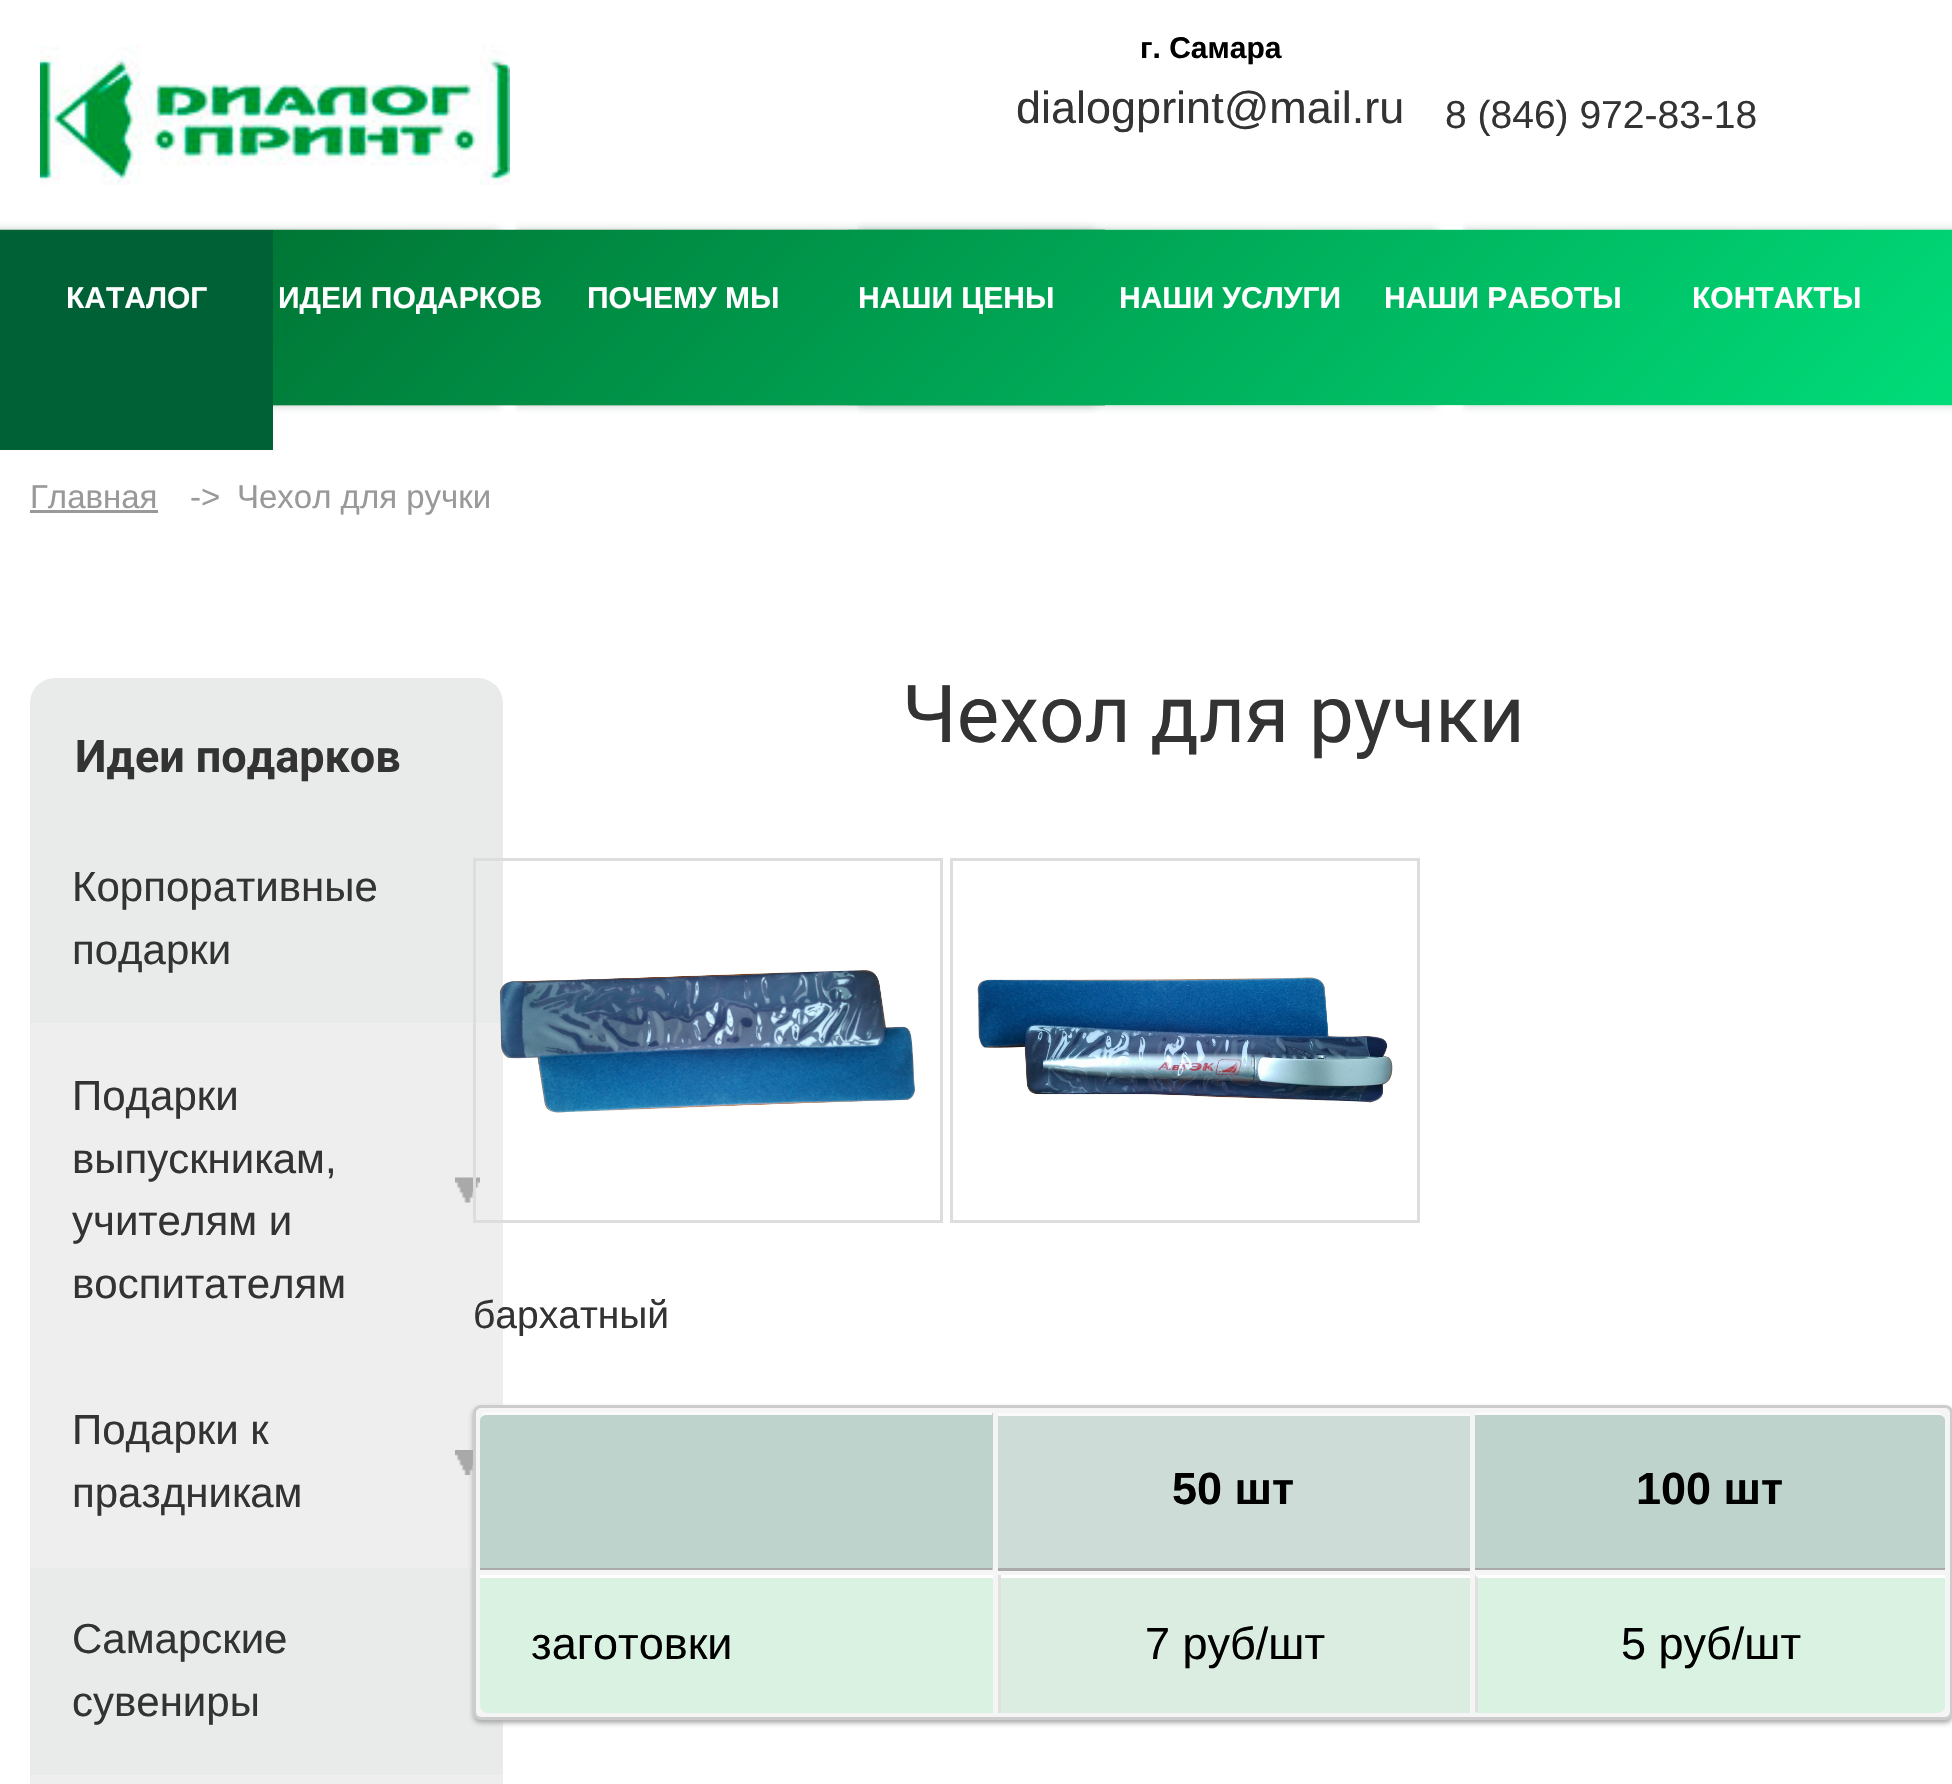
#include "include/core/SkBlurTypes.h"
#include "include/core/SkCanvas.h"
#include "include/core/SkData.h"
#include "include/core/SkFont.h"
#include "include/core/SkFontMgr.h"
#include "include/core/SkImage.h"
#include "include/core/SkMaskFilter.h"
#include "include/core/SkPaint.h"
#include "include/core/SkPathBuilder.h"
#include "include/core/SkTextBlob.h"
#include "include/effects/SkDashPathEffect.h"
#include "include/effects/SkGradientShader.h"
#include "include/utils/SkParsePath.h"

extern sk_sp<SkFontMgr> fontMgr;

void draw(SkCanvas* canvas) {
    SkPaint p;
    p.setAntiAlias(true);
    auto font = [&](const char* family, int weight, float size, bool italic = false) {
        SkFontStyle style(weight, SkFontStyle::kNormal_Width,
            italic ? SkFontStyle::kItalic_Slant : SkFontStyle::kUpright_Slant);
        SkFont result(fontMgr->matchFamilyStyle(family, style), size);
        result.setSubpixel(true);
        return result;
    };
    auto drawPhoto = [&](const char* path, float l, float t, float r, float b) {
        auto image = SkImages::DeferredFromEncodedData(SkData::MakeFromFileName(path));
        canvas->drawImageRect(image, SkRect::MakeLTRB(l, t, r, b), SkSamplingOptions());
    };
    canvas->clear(0xFFFFFFFF);
    drawPhoto("media/1.png", 0, 221, 1952, 414);
    drawPhoto("media/2.png", 40, 45, 510, 185);
    auto font1 = font("Liberation Sans", 700, 30);
    p.setColor(0xFF000000);
    canvas->drawString("г. Самара", 1140, 58, font1, p);
    auto font2 = font("Liberation Sans", 400, 45);
    p.setColor(0xFF333333);
    canvas->drawString("dialogprint@mail.ru", 1016, 123, font2, p);
    auto font3 = font("Liberation Sans", 400, 39);
    canvas->drawString("8 (846) 972-83-18", 1445, 128, font3, p);
    {
        const SkColor colors[] = {0xFF00DC79, 0xFF00672B};
        const float stops[] = {0, 1};
        const SkPoint ends[] = {{1508, 849}, {444, -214}};
        p.setShader(SkGradientShader::MakeLinear(ends, colors, stops, 2, SkTileMode::kClamp));
        p.setAlpha(255);
    }
    canvas->drawRect(SkRect::MakeLTRB(273, 230, 1952, 405), p);
    p.setShader(nullptr);
    p.setColor(0xFF006137);
    canvas->drawRect(SkRect::MakeLTRB(0, 230, 273, 450), p);
    p.setColor(0xFFFFFFFF);
    {
        const struct { const char* s; float x, y; } items[] = {
            {"КАТАЛОГ", 66, 308},
            {"ИДЕИ ПОДАРКОВ", 278, 308},
            {"ПОЧЕМУ МЫ", 587, 308},
            {"НАШИ ЦЕНЫ", 858, 308},
            {"НАШИ УСЛУГИ", 1119, 308},
            {"НАШИ РАБОТЫ", 1384, 308},
            {"КОНТАКТЫ", 1692, 308},
        };
        for (auto [s, x, y] : items) {
            canvas->drawString(s, x, y, font1, p);
        }
    }
    auto font4 = font("Liberation Sans", 400, 33);
    p.setColor(0xFF999999);
    canvas->drawString("Главная", 30, 508, font4, p);
    canvas->drawRect(SkRect::MakeLTRB(30, 510, 158, 513), p);
    canvas->drawString("->", 190, 508, font4, p);
    canvas->drawString("Чехол для ручки", 237, 508, font4, p);
    p.setColor(0xFFE8EBEA);
    canvas->drawRoundRect(SkRect::MakeLTRB(30, 678, 503, 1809), 25, 25, p);
    auto font5 = font("Roboto", 700, 45);
    p.setColor(0xFF333333);
    canvas->drawString("Идеи подарков", 75, 772, font5, p);
    auto font6 = font("Liberation Sans", 400, 42);
    canvas->drawString("Корпоративные", 72, 901, font6, p);
    canvas->drawString("подарки", 72, 964, font6, p);
    p.setColor(0xFFEEEEEE);
    canvas->drawRect(SkRect::MakeLTRB(30, 1023, 503, 1568), p);
    drawPhoto("media/3.png", 455, 1177, 480, 1203);
    p.setColor(0xFF333333);
    {
        const struct { const char* s; float x, y; } items[] = {
            {"Подарки", 72, 1110},
            {"выпускникам,", 72, 1173},
            {"учителям и", 72, 1235},
            {"воспитателям", 72, 1298},
        };
        for (auto [s, x, y] : items) {
            canvas->drawString(s, x, y, font6, p);
        }
    }
    drawPhoto("media/4.png", 455, 1450, 473, 1475);
    {
        const struct { const char* s; float x, y; } items[] = {
            {"Подарки к", 72, 1444},
            {"праздникам", 72, 1507},
            {"Самарские", 72, 1653},
            {"сувениры", 72, 1716},
        };
        for (auto [s, x, y] : items) {
            canvas->drawString(s, x, y, font6, p);
        }
    }
    p.setColor(0xFFEEEEEE);
    canvas->drawRect(SkRect::MakeLTRB(30, 1775, 503, 1784), p);
    auto font7 = font("Roboto", 400, 80);
    p.setColor(0xFF333333);
    canvas->drawString("Чехол для ручки", 902, 742, font7, p);
    p.setStyle(SkPaint::kStroke_Style);
    p.setStrokeWidth(3);
    p.setColor(0xFFDDDDDD);
    canvas->drawRect(SkRect::MakeLTRB(474.5f, 859.5f, 941.5f, 1221.5f), p);
    drawPhoto("media/5.png", 500, 970, 915, 1113);
    canvas->drawRect(SkRect::MakeLTRB(951.5f, 859.5f, 1418.5f, 1221.5f), p);
    drawPhoto("media/6.png", 977, 977, 1393, 1103);
    p.setStyle(SkPaint::kFill_Style);
    p.setColor(0xFF333333);
    canvas->drawString("бархатный", 473, 1328, font3, p);
    p.setColor(0xFFAAAAAA);
    p.setMaskFilter(SkMaskFilter::MakeBlur(kNormal_SkBlurStyle, 2.5f));
    canvas->drawRoundRect(SkRect::MakeLTRB(473, 1408, 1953, 1723), 8, 8, p);
    p.setMaskFilter(nullptr);
    p.setColor(0xFFF5F5F5);
    canvas->drawRoundRect(SkRect::MakeLTRB(474.5f, 1406.5f, 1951.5f, 1718.5f), 6.5f, 6.5f, p);
    p.setStyle(SkPaint::kStroke_Style);
    p.setColor(0xFFCCCCCC);
    canvas->drawRoundRect(SkRect::MakeLTRB(474.5f, 1406.5f, 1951.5f, 1718.5f), 6.5f, 6.5f, p);
    p.setStyle(SkPaint::kFill_Style);
    p.setColor(0xFFBED3CC);
    canvas->drawPath(SkPathBuilder().moveTo(488, 1413).lineTo(993, 1413).lineTo(993, 1570).lineTo(480, 1570).lineTo(480, 1421).cubicTo(480, 1416.5f, 483.5f, 1413, 488, 1413).close().detach(), p);
    p.setColor(0xFFFAFAFA);
    canvas->drawPath(SkPathBuilder().moveTo(488, 1415).lineTo(992, 1415).lineTo(992, 1412).lineTo(485, 1412).cubicTo(482, 1414, 480, 1417, 480, 1420).cubicTo(480, 1417, 483, 1415, 488, 1415).close().detach(), p);
    {
        const struct { float l, t, r, b; SkColor color; } items[] = {
            {480, 1568, 992, 1570, 0xFFAAAAAA},
            {998, 1416, 1470, 1568, 0xFFCDDCD6},
            {998, 1413, 1470, 1416, 0xFFFAFAFA},
            {998, 1568, 1470, 1571, 0xFFAAAAAA},
        };
        for (auto [l, t, r, b, color] : items) {
            p.setColor(color);
            canvas->drawRect(SkRect::MakeLTRB(l, t, r, b), p);
        }
    }
    auto font8 = font("Liberation Sans", 700, 45);
    p.setColor(0xFF000000);
    canvas->drawString("50 шт", 1172, 1504, font8, p);
    p.setColor(0xFFBED3CC);
    canvas->drawPath(SkPathBuilder().moveTo(1475, 1413).lineTo(1937, 1413).cubicTo(1941.5f, 1413, 1945, 1416.5f, 1945, 1421).lineTo(1945, 1570).lineTo(1475, 1570).close().detach(), p);
    p.setColor(0xFFFAFAFA);
    canvas->drawPath(SkPathBuilder().moveTo(1475, 1415).lineTo(1938, 1415).cubicTo(1942, 1415, 1945, 1417, 1945, 1420).lineTo(1944, 1416).lineTo(1940, 1412).lineTo(1475, 1412).close().detach(), p);
    p.setColor(0xFFAAAAAA);
    canvas->drawRect(SkRect::MakeLTRB(1475, 1568, 1945, 1570), p);
    p.setColor(0xFF000000);
    canvas->drawString("100 шт", 1636, 1504, font8, p);
    p.setColor(0xFFD9F2E2);
    canvas->drawPath(SkPathBuilder().moveTo(480, 1575).lineTo(993, 1575).lineTo(993, 1713).lineTo(488, 1713).cubicTo(483.5f, 1713, 480, 1709.5f, 480, 1705).close().detach(), p);
    p.setColor(0xFFFFFFFF);
    canvas->drawRect(SkRect::MakeLTRB(480, 1575, 993, 1578), p);
    p.setColor(0xFF000000);
    canvas->drawString("заготовки", 531, 1659, font2, p);
    {
        const struct { float l, t, r, b; SkColor color; } items[] = {
            {1001, 1578, 1470, 1713, 0xFFDBECE1},
            {998, 1575, 1470, 1578, 0xFFFFFFFF},
            {998, 1575, 1001, 1713, 0xFFE0E0E0},
        };
        for (auto [l, t, r, b, color] : items) {
            p.setColor(color);
            canvas->drawRect(SkRect::MakeLTRB(l, t, r, b), p);
        }
    }
    p.setColor(0xFF000000);
    canvas->drawString("7 руб/шт", 1145, 1659, font2, p);
    p.setColor(0xFFD9F2E2);
    canvas->drawPath(SkPathBuilder().moveTo(1475, 1575).lineTo(1945, 1575).lineTo(1945, 1705).cubicTo(1945, 1709.5f, 1941.5f, 1713, 1937, 1713).lineTo(1475, 1713).close().detach(), p);
    p.setColor(0xFFFFFFFF);
    canvas->drawPath(SkPathBuilder().moveTo(1475, 1575).lineTo(1945, 1575).lineTo(1945, 1578).lineTo(1478, 1578).close().detach(), p);
    p.setColor(0xFFE0E0E0);
    canvas->drawPath(SkPathBuilder().moveTo(1478, 1578).lineTo(1475, 1575).lineTo(1475, 1712).lineTo(1478, 1712).close().detach(), p);
    p.setColor(0xFF000000);
    canvas->drawString("5 руб/шт", 1621, 1659, font2, p);
}
